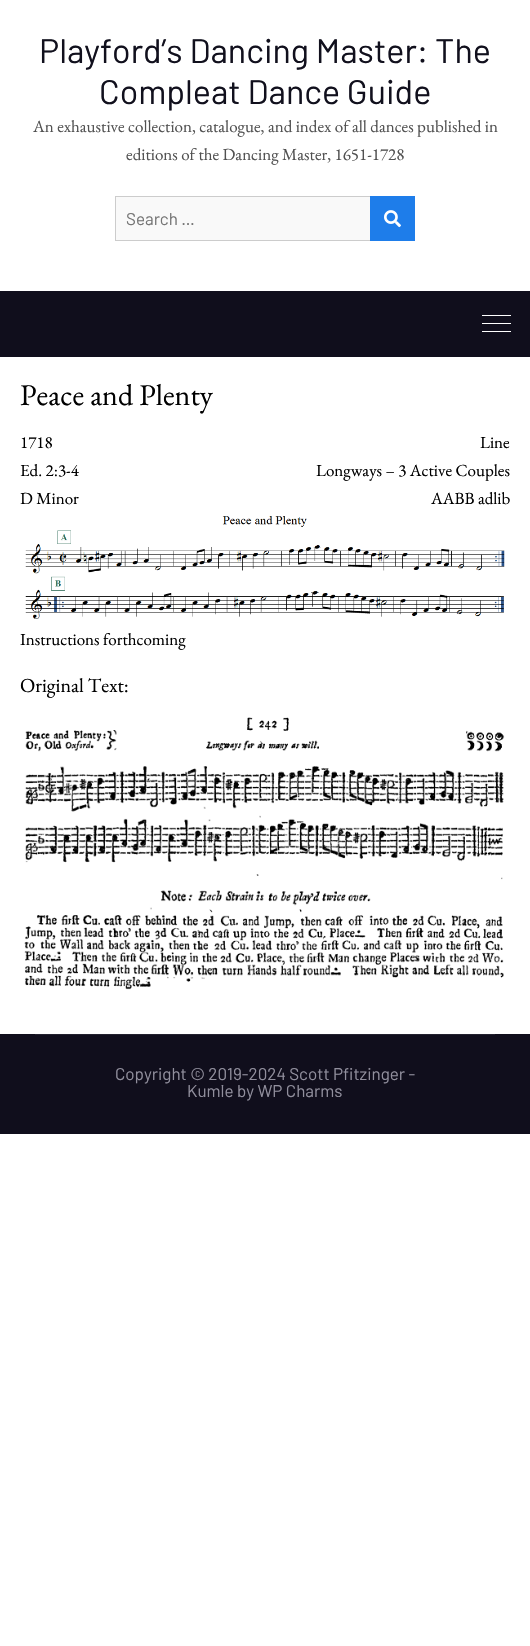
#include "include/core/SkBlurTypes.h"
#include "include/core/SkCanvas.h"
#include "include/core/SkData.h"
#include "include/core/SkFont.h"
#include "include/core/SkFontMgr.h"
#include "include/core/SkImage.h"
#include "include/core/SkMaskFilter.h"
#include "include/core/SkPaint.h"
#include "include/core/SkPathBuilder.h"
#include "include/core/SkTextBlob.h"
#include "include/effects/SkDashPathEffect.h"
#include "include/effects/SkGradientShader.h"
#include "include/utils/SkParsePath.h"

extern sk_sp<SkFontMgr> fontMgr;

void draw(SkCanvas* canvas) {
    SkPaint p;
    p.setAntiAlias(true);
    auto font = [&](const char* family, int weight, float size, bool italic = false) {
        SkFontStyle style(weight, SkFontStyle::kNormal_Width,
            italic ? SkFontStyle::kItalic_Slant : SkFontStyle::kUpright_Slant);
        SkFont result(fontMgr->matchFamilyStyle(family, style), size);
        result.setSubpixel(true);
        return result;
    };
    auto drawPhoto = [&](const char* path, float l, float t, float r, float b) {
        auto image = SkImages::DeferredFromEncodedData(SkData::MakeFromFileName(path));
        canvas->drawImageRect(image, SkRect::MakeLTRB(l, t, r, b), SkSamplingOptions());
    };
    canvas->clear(0xFFFFFFFF);
    auto font1 = font("Barlow", 400, 34);
    p.setColor(0xFF11101D);
    canvas->drawString("Playford’s Dancing Master: The", 39, 63, font1, p);
    canvas->drawString("Compleat Dance Guide", 99, 104, font1, p);
    auto font2 = font("EB Garamond", 400, 17);
    p.setColor(0xFF515151);
    canvas->drawString("An exhaustive collection, catalogue, and index of all dances published in", 33, 132, font2, p);
    canvas->drawString("editions of the Dancing Master, 1651-1728", 126, 160, font2, p);
    p.setColor(0xFFF9F9F9);
    canvas->drawRect(SkRect::MakeLTRB(116, 197, 370, 240), p);
    p.setStyle(SkPaint::kStroke_Style);
    p.setStrokeWidth(1);
    p.setColor(0xFFCCCCCC);
    canvas->drawRect(SkRect::MakeLTRB(115.5f, 196.5f, 414.5f, 240.5f), p);
    auto font3 = font("Barlow", 400, 17);
    p.setStyle(SkPaint::kFill_Style);
    p.setColor(0xFF757575);
    canvas->drawString("Search …", 126, 225, font3, p);
    p.setColor(0xFF1E7DEA);
    canvas->drawRect(SkRect::MakeLTRB(370, 196, 415, 241), p);
    drawPhoto("media/1.png", 384, 210, 401, 228);
    {
        const struct { float l, t, r, b; SkColor color; } items[] = {
            {0, 291, 530, 357, 0xFF100E1C},
            {482, 315, 511, 316, 0xFFFFFFFF},
            {482, 323, 511, 324, 0xFFFFFFFF},
            {482, 331, 511, 332, 0xFFFFFFFF},
        };
        for (auto [l, t, r, b, color] : items) {
            p.setColor(color);
            canvas->drawRect(SkRect::MakeLTRB(l, t, r, b), p);
        }
    }
    auto font4 = font("EB Garamond", 400, 30);
    p.setColor(0xFF000000);
    canvas->drawString("Peace and Plenty", 20, 405, font4, p);
    {
        const struct { const char* s; float x, y; } items[] = {
            {"1718", 20, 448},
            {"Line", 480, 448},
            {"Ed. 2:3-4", 20, 476},
            {"Longways – 3 Active Couples", 316, 476},
            {"D Minor", 20, 504},
            {"AABB adlib", 431, 504},
        };
        for (auto [s, x, y] : items) {
            canvas->drawString(s, x, y, font2, p);
        }
    }
    drawPhoto("media/2.png", 25, 516, 505, 619);
    canvas->drawString("Instructions forthcoming", 20, 645, font2, p);
    auto font5 = font("EB Garamond", 400, 20);
    canvas->drawString("Original Text:", 20, 692, font5, p);
    drawPhoto("media/3.png", 24, 717, 505, 990);
    p.setColor(0xFF100E1C);
    canvas->drawRect(SkRect::MakeLTRB(0, 1034, 530, 1134), p);
    p.setColor(0xFF23212F);
    canvas->drawRect(SkRect::MakeLTRB(35, 1034, 495, 1035), p);
    p.setColor(0xFF918F9D);
    canvas->drawString("Copyright © 2019-2024 Scott Pfitzinger -", 115, 1080, font3, p);
    canvas->drawString("Kumle by WP Charms", 187, 1097, font3, p);
}
